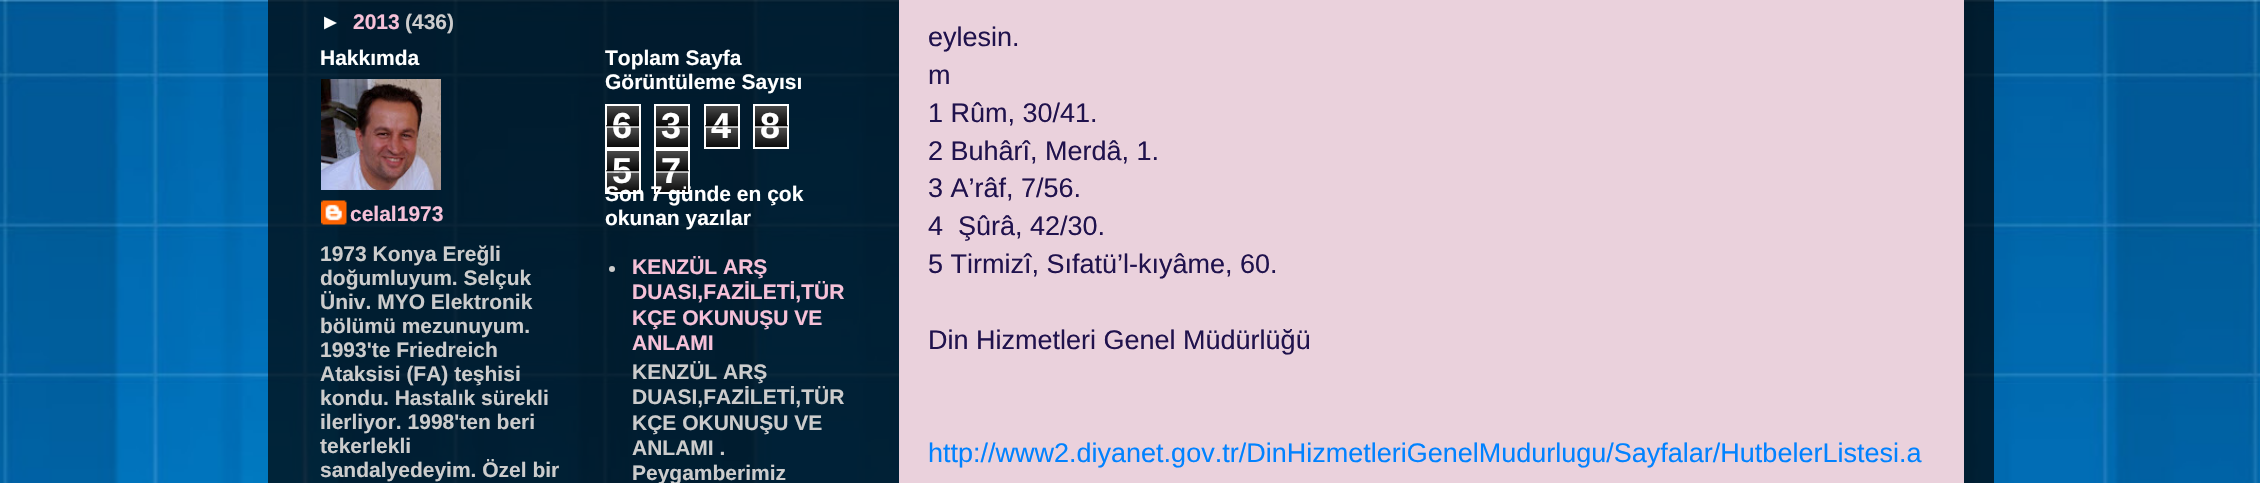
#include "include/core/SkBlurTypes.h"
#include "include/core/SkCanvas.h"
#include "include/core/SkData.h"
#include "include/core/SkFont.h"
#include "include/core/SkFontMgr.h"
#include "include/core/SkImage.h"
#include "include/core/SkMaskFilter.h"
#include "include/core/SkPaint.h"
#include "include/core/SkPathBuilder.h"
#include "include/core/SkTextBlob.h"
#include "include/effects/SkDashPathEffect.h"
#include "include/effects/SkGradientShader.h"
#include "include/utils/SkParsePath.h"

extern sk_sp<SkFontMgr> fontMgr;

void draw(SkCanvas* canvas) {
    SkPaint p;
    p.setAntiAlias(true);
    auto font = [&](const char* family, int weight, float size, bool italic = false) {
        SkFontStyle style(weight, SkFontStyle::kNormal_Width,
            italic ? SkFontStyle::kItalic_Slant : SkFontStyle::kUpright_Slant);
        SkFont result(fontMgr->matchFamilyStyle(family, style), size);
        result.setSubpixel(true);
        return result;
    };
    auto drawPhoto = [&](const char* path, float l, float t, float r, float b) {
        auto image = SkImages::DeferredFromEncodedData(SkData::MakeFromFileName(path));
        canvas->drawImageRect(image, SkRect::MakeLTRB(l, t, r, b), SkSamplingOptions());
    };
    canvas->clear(0xFFFFFFFF);
    drawPhoto("media/1.png", 0, 0, 2260, 483);
    p.setColor(0xB3000000);
    canvas->drawRect(SkRect::MakeLTRB(268, 0, 1994, 483), p);
    auto font1 = font("Liberation Sans", 700, 21);
    p.setColor(0xFFFFFFFF);
    canvas->drawString("►", 320, 29, font1, p);
    p.setColor(0xFFF6C1D8);
    canvas->drawString("2013", 353, 29, font1, p);
    p.setColor(0xFFCCCCCC);
    canvas->drawString("(436)", 405, 29, font1, p);
    p.setColor(0xFFFFFFFF);
    canvas->drawString("Hakkımda", 320, 65, font1, p);
    drawPhoto("media/2.png", 321, 79, 441, 190);
    drawPhoto("media/3.png", 321, 200, 347, 225);
    p.setColor(0xFFF6C1D8);
    canvas->drawString("celal1973", 350, 221, font1, p);
    p.setColor(0xFFCCCCCC);
    {
        const struct { const char* s; float x, y; } items[] = {
            {"1973 Konya Ereğli", 320, 261},
            {"doğumluyum. Selçuk", 320, 285},
            {"Üniv. MYO Elektronik", 320, 309},
            {"bölümü mezunuyum.", 320, 333},
            {"1993'te Friedreich", 320, 357},
            {"Ataksisi (FA) teşhisi", 320, 381},
            {"kondu. Hastalık sürekli", 320, 405},
            {"ilerliyor. 1998'ten beri", 320, 429},
            {"tekerlekli", 320, 453},
            {"sandalyedeyim. Özel bir", 320, 477},
        };
        for (auto [s, x, y] : items) {
            canvas->drawString(s, x, y, font1, p);
        }
    }
    p.setColor(0xFFFFFFFF);
    canvas->drawString("Toplam Sayfa", 605, 65, font1, p);
    canvas->drawString("Görüntüleme Sayısı", 605, 89, font1, p);
    drawPhoto("media/4.png", 607, 106, 639, 147);
    p.setStyle(SkPaint::kStroke_Style);
    p.setStrokeWidth(2);
    canvas->drawRect(SkRect::MakeLTRB(606, 105, 640, 148), p);
    auto font2 = font("Liberation Sans", 700, 36);
    p.setStyle(SkPaint::kFill_Style);
    canvas->drawString("6", 612, 138, font2, p);
    p.setColor(0xA6000000);
    canvas->drawRect(SkRect::MakeLTRB(606, 125, 639, 127), p);
    p.setColor(0xA6FFFFFF);
    canvas->drawRect(SkRect::MakeLTRB(606, 126, 639, 128), p);
    drawPhoto("media/5.png", 656, 106, 688, 147);
    p.setStyle(SkPaint::kStroke_Style);
    p.setColor(0xFFFFFFFF);
    canvas->drawRect(SkRect::MakeLTRB(655, 105, 689, 148), p);
    p.setStyle(SkPaint::kFill_Style);
    canvas->drawString("3", 661, 138, font2, p);
    p.setColor(0xA6000000);
    canvas->drawRect(SkRect::MakeLTRB(656, 125, 689, 127), p);
    p.setColor(0xA6FFFFFF);
    canvas->drawRect(SkRect::MakeLTRB(656, 126, 689, 128), p);
    drawPhoto("media/4.png", 706, 106, 738, 147);
    p.setStyle(SkPaint::kStroke_Style);
    p.setColor(0xFFFFFFFF);
    canvas->drawRect(SkRect::MakeLTRB(705, 105, 739, 148), p);
    p.setStyle(SkPaint::kFill_Style);
    canvas->drawString("4", 711, 138, font2, p);
    p.setColor(0xA6000000);
    canvas->drawRect(SkRect::MakeLTRB(705, 125, 738, 127), p);
    p.setColor(0xA6FFFFFF);
    canvas->drawRect(SkRect::MakeLTRB(705, 126, 738, 128), p);
    drawPhoto("media/5.png", 755, 106, 787, 147);
    p.setStyle(SkPaint::kStroke_Style);
    p.setColor(0xFFFFFFFF);
    canvas->drawRect(SkRect::MakeLTRB(754, 105, 788, 148), p);
    p.setStyle(SkPaint::kFill_Style);
    canvas->drawString("8", 760, 138, font2, p);
    p.setColor(0xA6000000);
    canvas->drawRect(SkRect::MakeLTRB(755, 125, 788, 127), p);
    p.setColor(0xA6FFFFFF);
    canvas->drawRect(SkRect::MakeLTRB(755, 126, 788, 128), p);
    drawPhoto("media/4.png", 607, 151, 639, 192);
    p.setStyle(SkPaint::kStroke_Style);
    p.setColor(0xFFFFFFFF);
    canvas->drawRect(SkRect::MakeLTRB(606, 150, 640, 193), p);
    p.setStyle(SkPaint::kFill_Style);
    canvas->drawString("5", 612, 183, font2, p);
    p.setColor(0xA6000000);
    canvas->drawRect(SkRect::MakeLTRB(606, 170, 639, 172), p);
    p.setColor(0xA6FFFFFF);
    canvas->drawRect(SkRect::MakeLTRB(606, 171, 639, 173), p);
    drawPhoto("media/5.png", 656, 151, 688, 192);
    p.setStyle(SkPaint::kStroke_Style);
    p.setColor(0xFFFFFFFF);
    canvas->drawRect(SkRect::MakeLTRB(655, 150, 689, 193), p);
    p.setStyle(SkPaint::kFill_Style);
    canvas->drawString("7", 661, 183, font2, p);
    p.setColor(0xA6000000);
    canvas->drawRect(SkRect::MakeLTRB(656, 170, 689, 172), p);
    p.setColor(0xA6FFFFFF);
    canvas->drawRect(SkRect::MakeLTRB(656, 171, 689, 173), p);
    p.setColor(0xFFFFFFFF);
    canvas->drawString("Son 7 günde en çok", 605, 201, font1, p);
    canvas->drawString("okunan yazılar", 605, 225, font1, p);
    p.setColor(0xFFCCCCCC);
    canvas->drawCircle(612, 269, 3, p);
    p.setColor(0xFFF6C1D8);
    {
        const struct { const char* s; float x, y; } items[] = {
            {"KENZÜL ARŞ", 632, 274},
            {"DUASI,FAZİLETİ,TÜR", 632, 299},
            {"KÇE OKUNUŞU VE", 632, 325},
            {"ANLAMI", 632, 350},
        };
        for (auto [s, x, y] : items) {
            canvas->drawString(s, x, y, font1, p);
        }
    }
    p.setColor(0xFFCCCCCC);
    {
        const struct { const char* s; float x, y; } items[] = {
            {"KENZÜL ARŞ", 632, 379},
            {"DUASI,FAZİLETİ,TÜR", 632, 404},
            {"KÇE OKUNUŞU VE", 632, 430},
            {"ANLAMI .", 632, 455},
            {"Peygamberimiz", 632, 480},
        };
        for (auto [s, x, y] : items) {
            canvas->drawString(s, x, y, font1, p);
        }
    }
    p.setColor(0xFFEAD1DC);
    canvas->drawRect(SkRect::MakeLTRB(899, 0, 1964, 483), p);
    auto font3 = font("Liberation Sans", 400, 27);
    p.setColor(0xFF20124D);
    {
        const struct { const char* s; float x, y; } items[] = {
            {"eylesin.", 928, 46},
            {"m", 928, 84},
            {"1 Rûm, 30/41.", 928, 122},
            {"2 Buhârî, Merdâ, 1.", 928, 160},
            {"3 A’râf, 7/56.", 928, 197},
            {"4  Şûrâ, 42/30.", 928, 235},
            {"5 Tirmizî, Sıfatü’l-kıyâme, 60.", 928, 273},
            {"Din Hizmetleri Genel Müdürlüğü", 928, 349},
        };
        for (auto [s, x, y] : items) {
            canvas->drawString(s, x, y, font3, p);
        }
    }
    p.setColor(0xFF0182FF);
    canvas->drawString("http://www2.diyanet.gov.tr/DinHizmetleriGenelMudurlugu/Sayfalar/HutbelerListesi.a", 928, 462, font3, p);
}
